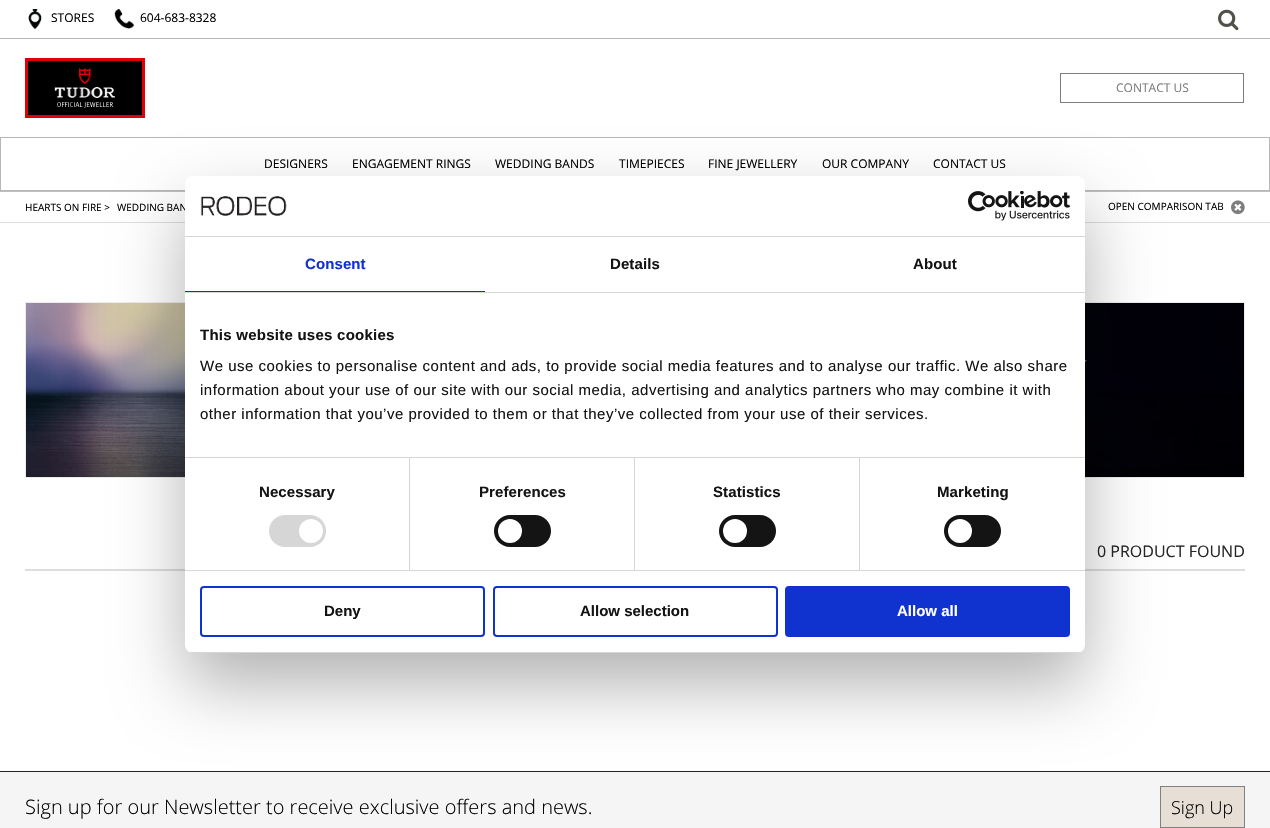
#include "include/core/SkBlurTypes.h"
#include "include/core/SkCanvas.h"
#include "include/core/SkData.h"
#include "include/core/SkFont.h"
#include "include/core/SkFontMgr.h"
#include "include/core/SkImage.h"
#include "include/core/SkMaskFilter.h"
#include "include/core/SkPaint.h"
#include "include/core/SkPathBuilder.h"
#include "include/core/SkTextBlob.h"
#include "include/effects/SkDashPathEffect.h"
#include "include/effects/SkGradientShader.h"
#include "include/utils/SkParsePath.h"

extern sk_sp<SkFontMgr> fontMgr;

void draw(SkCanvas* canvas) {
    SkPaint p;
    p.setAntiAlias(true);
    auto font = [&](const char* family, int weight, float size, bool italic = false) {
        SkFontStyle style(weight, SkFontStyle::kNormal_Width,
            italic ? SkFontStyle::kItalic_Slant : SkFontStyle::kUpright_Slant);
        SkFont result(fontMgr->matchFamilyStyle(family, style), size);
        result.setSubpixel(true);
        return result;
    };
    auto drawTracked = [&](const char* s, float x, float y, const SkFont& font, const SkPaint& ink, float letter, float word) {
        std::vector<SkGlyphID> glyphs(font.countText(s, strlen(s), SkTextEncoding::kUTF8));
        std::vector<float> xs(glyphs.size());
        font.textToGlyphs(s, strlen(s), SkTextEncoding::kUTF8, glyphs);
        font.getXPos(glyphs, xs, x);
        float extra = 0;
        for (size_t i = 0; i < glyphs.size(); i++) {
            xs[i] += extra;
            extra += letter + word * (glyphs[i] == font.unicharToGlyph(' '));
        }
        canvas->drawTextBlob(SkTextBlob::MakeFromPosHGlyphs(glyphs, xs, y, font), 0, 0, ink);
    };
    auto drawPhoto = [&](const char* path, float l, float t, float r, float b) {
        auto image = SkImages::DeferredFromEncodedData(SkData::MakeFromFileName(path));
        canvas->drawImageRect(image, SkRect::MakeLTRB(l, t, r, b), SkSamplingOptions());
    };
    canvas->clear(0xFFFFFFFF);
    p.setColor(0xFFBFBFBF);
    canvas->drawRect(SkRect::MakeLTRB(0, 191, 1270, 192), p);
    p.setColor(0xFFB7B7B7);
    canvas->drawRect(SkRect::MakeLTRB(0, 38, 1270, 39), p);
    drawPhoto("media/1.png", 28, 9, 42, 29);
    auto font1 = font("Open Sans", 400, 12);
    p.setColor(0xFF000000);
    canvas->drawString("STORES", 51, 22, font1, p);
    drawPhoto("media/2.png", 114, 9, 134, 29);
    canvas->drawString("604-683-8328", 140, 22, font1, p);
    drawPhoto("media/3.png", 1218, 9, 1239, 31);
    drawPhoto("media/4.png", 25, 58, 145, 118);
    p.setStyle(SkPaint::kStroke_Style);
    p.setStrokeWidth(1);
    p.setColor(0xFF7D7D7D);
    canvas->drawRect(SkRect::MakeLTRB(1060.5f, 73.5f, 1243.5f, 102.5f), p);
    p.setStyle(SkPaint::kFill_Style);
    canvas->drawString("CONTACT US", 1116, 92, font1, p);
    p.setStyle(SkPaint::kStroke_Style);
    p.setColor(0xFFB7B7B7);
    canvas->drawRect(SkRect::MakeLTRB(0.5f, 137.5f, 1269.5f, 190.5f), p);
    p.setStyle(SkPaint::kFill_Style);
    p.setColor(0xFF000000);
    {
        const struct { const char* s; float x, y; } items[] = {
            {"DESIGNERS", 264, 168},
            {"ENGAGEMENT RINGS", 352, 168},
            {"WEDDING BANDS", 495, 168},
            {"TIMEPIECES", 619, 168},
            {"FINE JEWELLERY", 708, 168},
            {"OUR COMPANY", 822, 168},
            {"CONTACT US", 933, 168},
        };
        for (auto [s, x, y] : items) {
            canvas->drawString(s, x, y, font1, p);
        }
    }
    p.setColor(0xFFDDDDDD);
    canvas->drawRect(SkRect::MakeLTRB(0, 222, 1270, 223), p);
    auto font2 = font("Open Sans", 400, 10);
    p.setColor(0xFF000000);
    {
        const struct { const char* s; float x, y; } items[] = {
            {"HEARTS ON FIRE >", 25, 211},
            {"WEDDING BAN", 117, 211},
            {"OPEN COMPARISON TAB", 1108, 210},
        };
        for (auto [s, x, y] : items) {
            canvas->drawString(s, x, y, font2, p);
        }
    }
    drawPhoto("media/5.png", 1231, 200, 1245, 215);
    p.setStyle(SkPaint::kStroke_Style);
    p.setColor(0xFFECECEC);
    canvas->drawRect(SkRect::MakeLTRB(25.5f, 302.5f, 1244.5f, 477.5f), p);
    drawPhoto("media/6.png", 26, 303, 1244, 477);
    auto font3 = font("Open Sans", 400, 16);
    p.setStyle(SkPaint::kFill_Style);
    p.setColor(0xFF252525);
    canvas->drawString("0 PRODUCT FOUND", 1097, 557, font3, p);
    {
        const struct { float l, t, r, b; SkColor color; } items[] = {
            {25, 569, 1245, 571, 0xFFDDDDDD},
            {0, 772, 1270, 828, 0xFFF5F5F5},
            {0, 771, 1270, 772, 0xFF252525},
        };
        for (auto [l, t, r, b, color] : items) {
            p.setColor(color);
            canvas->drawRect(SkRect::MakeLTRB(l, t, r, b), p);
        }
    }
    auto font4 = font("Open Sans", 300, 20);
    p.setColor(0xFF000000);
    canvas->drawString("Sign up for our Newsletter to receive exclusive offers and news.", 25, 814, font4, p);
    p.setColor(0xFFE7DFD6);
    canvas->drawRect(SkRect::MakeLTRB(1160.5f, 786.5f, 1244.5f, 827.5f), p);
    p.setStyle(SkPaint::kStroke_Style);
    p.setColor(0xFF808080);
    canvas->drawRect(SkRect::MakeLTRB(1160.5f, 786.5f, 1244.5f, 827.5f), p);
    auto font5 = font("Open Sans", 300, 18);
    p.setStyle(SkPaint::kFill_Style);
    p.setColor(0xFF000000);
    canvas->drawString("Sign Up", 1171, 814, font5, p);
    p.setColor(0x4D000000);
    p.setMaskFilter(SkMaskFilter::MakeBlur(kNormal_SkBlurStyle, 34));
    canvas->drawRoundRect(SkRect::MakeLTRB(185, 208, 1085, 685), 8, 8, p);
    p.setMaskFilter(nullptr);
    p.setColor(0xFFFFFFFF);
    canvas->drawRoundRect(SkRect::MakeLTRB(185, 176, 1085, 653), 8, 8, p);
    p.setColor(0xFFD6D6D6);
    canvas->drawRect(SkRect::MakeLTRB(185, 236, 1085, 237), p);
    drawPhoto("media/7.png", 200, 196, 287, 216);
    drawPhoto("media/8.png", 968, 191, 1070, 221);
    canvas->drawRect(SkRect::MakeLTRB(185, 292, 1085, 293), p);
    p.setColor(0xFF1032CF);
    canvas->drawRect(SkRect::MakeLTRB(185, 291, 485, 292), p);
    auto font6 = font("Liberation Sans", 700, 15);
    drawTracked("Consent", 305, 269, font6, p, 0.1f, 0);
    p.setColor(0xFF141414);
    drawTracked("Details", 610, 269, font6, p, 0.1f, 0);
    drawTracked("About", 913, 269, font6, p, 0.1f, 0);
    p.setColor(0xFFD6D6D6);
    canvas->drawRect(SkRect::MakeLTRB(185, 457, 1085, 458), p);
    p.setColor(0xFF141414);
    drawTracked("This website uses cookies", 200, 340, font6, p, 0.25f, 0);
    auto font7 = font("Liberation Sans", 400, 15);
    {
        const struct { const char* s; float x, y; } items[] = {
            {"We use cookies to personalise content and ads, to provide social media features and to analyse our traffic. We also share", 200, 371},
            {"information about your use of our site with our social media, advertising and analytics partners who may combine it with", 200, 395},
            {"other information that you’ve provided to them or that they’ve collected from your use of their services.", 200, 419},
        };
        for (auto [s, x, y] : items) {
            drawTracked(s, x, y, font7, p, 0.5f, 0);
        }
    }
    p.setColor(0xFFD6D6D6);
    canvas->drawRect(SkRect::MakeLTRB(185, 570, 1085, 571), p);
    canvas->drawRect(SkRect::MakeLTRB(409, 458, 410, 570), p);
    p.setColor(0xFF141414);
    drawTracked("Necessary", 259, 497, font6, p, 0.1f, 0);
    p.setColor(0xFFD6D6D6);
    canvas->drawRoundRect(SkRect::MakeLTRB(269, 515, 326, 547), 16, 16, p);
    p.setColor(0xFFFFFFFF);
    canvas->drawCircle(311, 531, 12, p);
    p.setColor(0xFFD6D6D6);
    canvas->drawRect(SkRect::MakeLTRB(634, 458, 635, 570), p);
    p.setColor(0xFF141414);
    drawTracked("Preferences", 479, 497, font6, p, 0.1f, 0);
    canvas->drawRoundRect(SkRect::MakeLTRB(494, 515, 551, 547), 16, 16, p);
    p.setColor(0xFFFFFFFF);
    canvas->drawCircle(510, 531, 12, p);
    p.setColor(0xFFD6D6D6);
    canvas->drawRect(SkRect::MakeLTRB(859, 458, 860, 570), p);
    p.setColor(0xFF141414);
    drawTracked("Statistics", 713, 497, font6, p, 0.1f, 0);
    canvas->drawRoundRect(SkRect::MakeLTRB(719, 515, 776, 547), 16, 16, p);
    p.setColor(0xFFFFFFFF);
    canvas->drawCircle(735, 531, 12, p);
    p.setColor(0xFF141414);
    drawTracked("Marketing", 937, 497, font6, p, 0.1f, 0);
    canvas->drawRoundRect(SkRect::MakeLTRB(944, 515, 1001, 547), 16, 16, p);
    p.setColor(0xFFFFFFFF);
    canvas->drawCircle(960, 531, 12, p);
    canvas->save();
    canvas->clipPath(SkPathBuilder().moveTo(193, 176).lineTo(1077, 176).cubicTo(1081.5f, 176, 1085, 179.5f, 1085, 184).lineTo(1085, 645).cubicTo(1085, 649.5f, 1081.5f, 653, 1077, 653).lineTo(193, 653).cubicTo(188.5f, 653, 185, 649.5f, 185, 645).lineTo(185, 184).cubicTo(185, 179.5f, 188.5f, 176, 193, 176).close().detach(), true);
    p.setColor(0xFFD6D6D6);
    canvas->drawRect(SkRect::MakeLTRB(185, 652, 1085, 653), p);
    canvas->restore();
    p.setStyle(SkPaint::kStroke_Style);
    p.setStrokeWidth(2);
    p.setColor(0xFF1032CF);
    canvas->drawRoundRect(SkRect::MakeLTRB(201, 587, 484, 636), 3, 3, p);
    p.setStyle(SkPaint::kFill_Style);
    p.setColor(0xFF141414);
    canvas->drawString("Deny", 324, 616, font6, p);
    p.setStyle(SkPaint::kStroke_Style);
    p.setColor(0xFF1032CF);
    canvas->drawRoundRect(SkRect::MakeLTRB(494, 587, 777, 636), 3, 3, p);
    p.setStyle(SkPaint::kFill_Style);
    p.setColor(0xFF141414);
    canvas->drawString("Allow selection", 580, 616, font6, p);
    p.setColor(0xFF1032CF);
    canvas->drawRoundRect(SkRect::MakeLTRB(786, 587, 1069, 636), 3, 3, p);
    p.setStyle(SkPaint::kStroke_Style);
    canvas->drawRoundRect(SkRect::MakeLTRB(786, 587, 1069, 636), 3, 3, p);
    p.setStyle(SkPaint::kFill_Style);
    p.setColor(0xFFFFFFFF);
    canvas->drawString("Allow all", 897, 616, font6, p);
}
